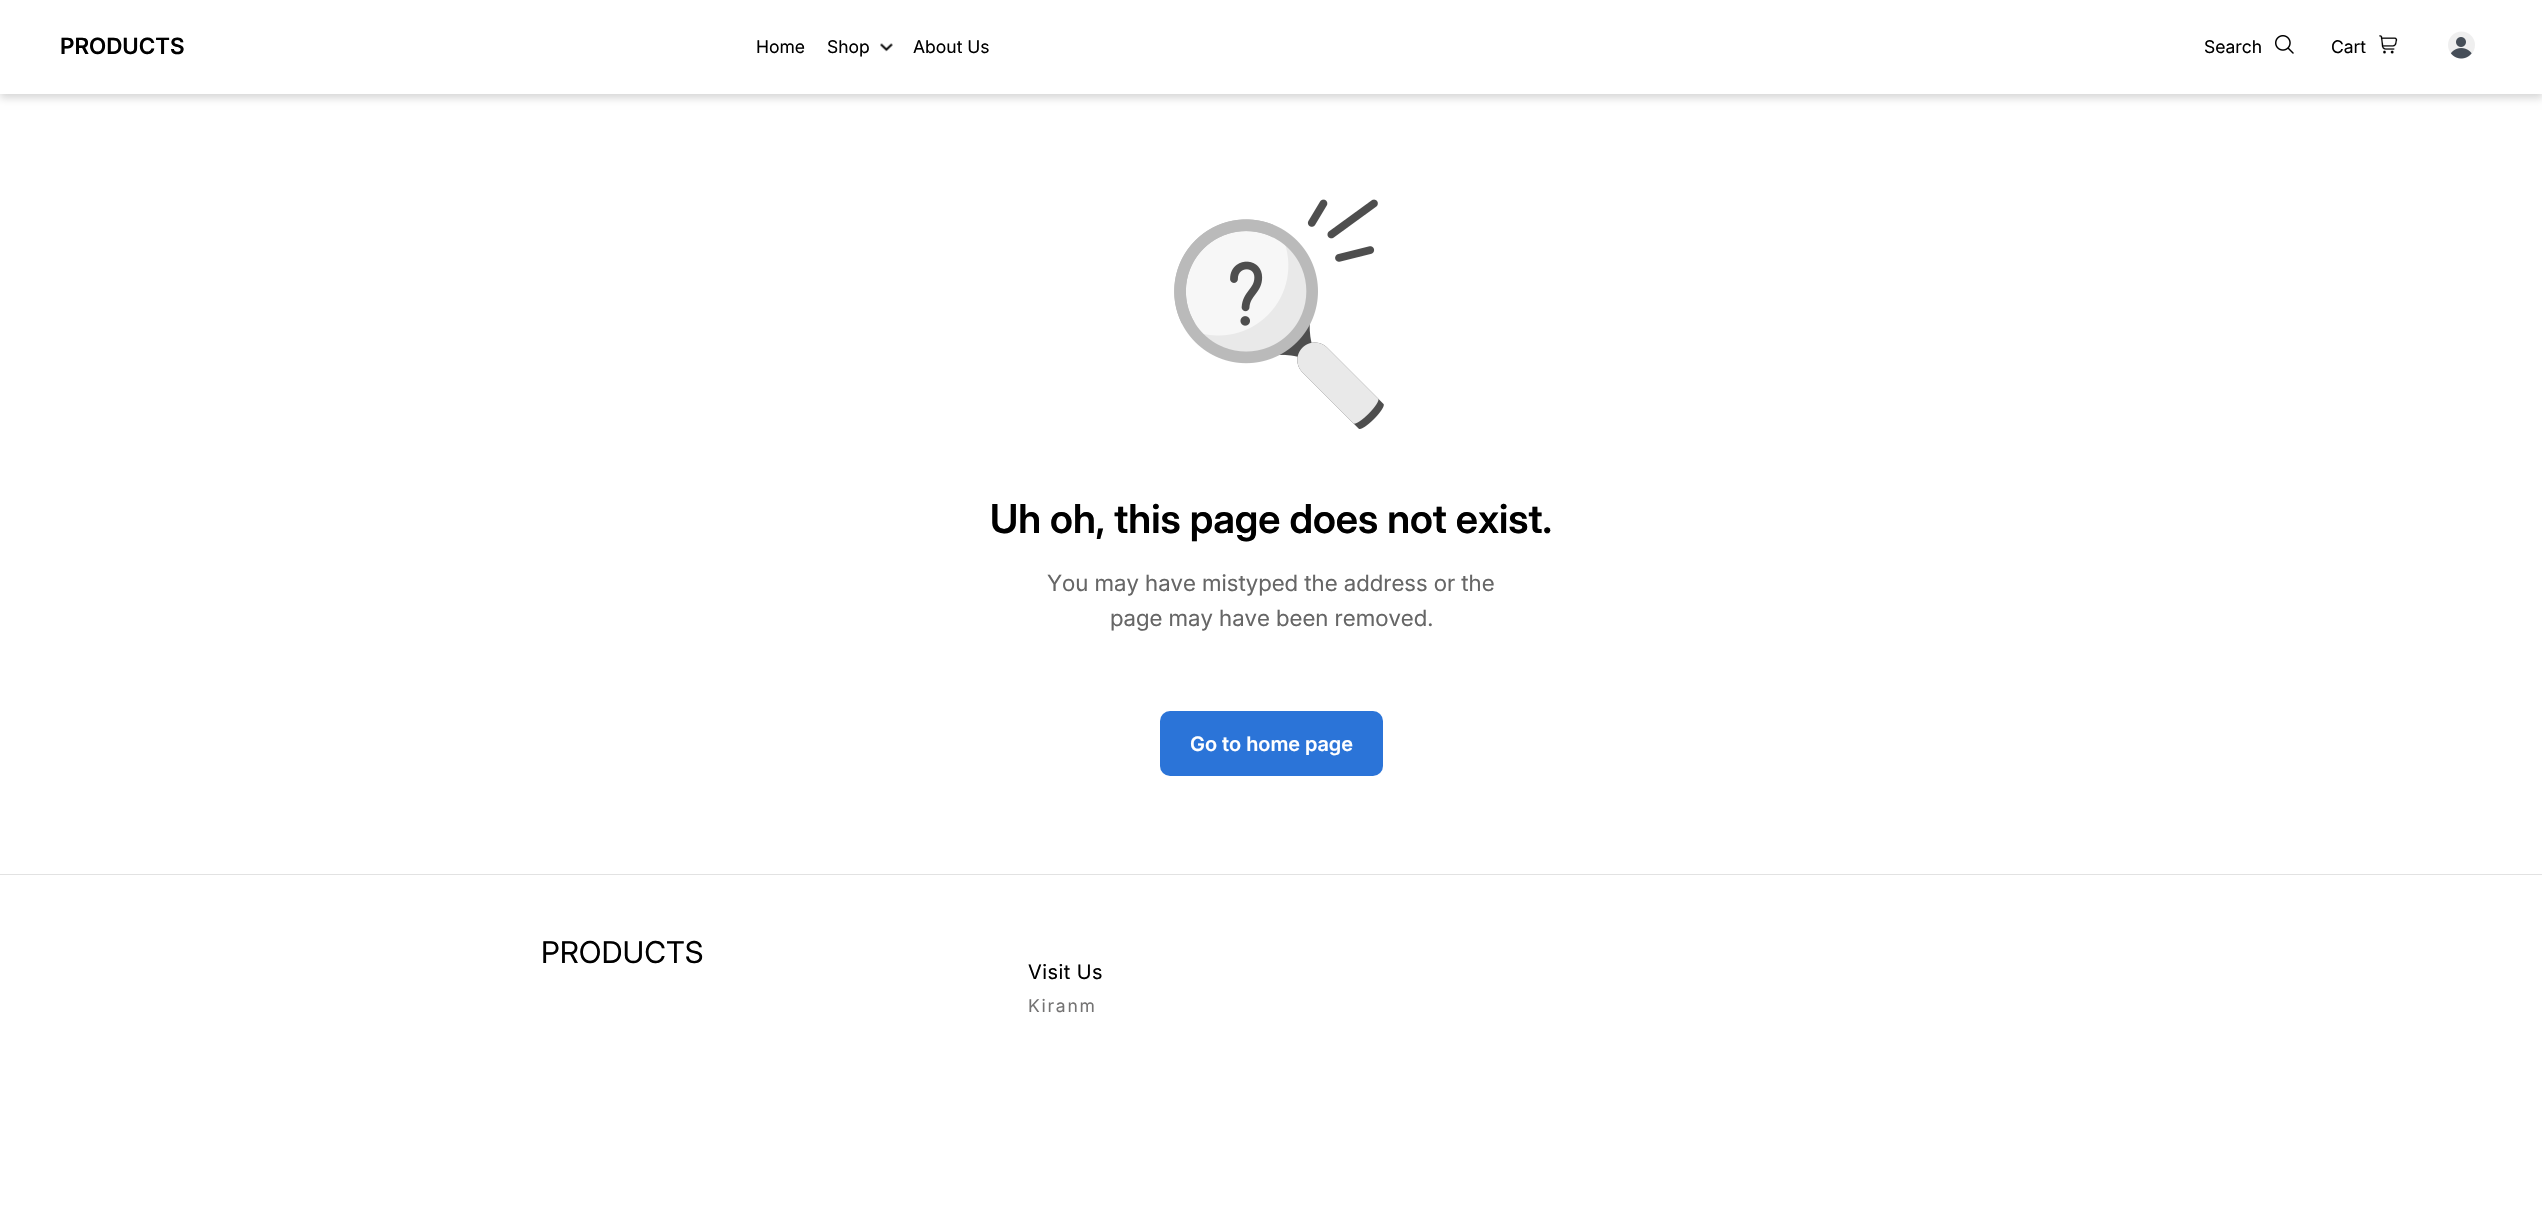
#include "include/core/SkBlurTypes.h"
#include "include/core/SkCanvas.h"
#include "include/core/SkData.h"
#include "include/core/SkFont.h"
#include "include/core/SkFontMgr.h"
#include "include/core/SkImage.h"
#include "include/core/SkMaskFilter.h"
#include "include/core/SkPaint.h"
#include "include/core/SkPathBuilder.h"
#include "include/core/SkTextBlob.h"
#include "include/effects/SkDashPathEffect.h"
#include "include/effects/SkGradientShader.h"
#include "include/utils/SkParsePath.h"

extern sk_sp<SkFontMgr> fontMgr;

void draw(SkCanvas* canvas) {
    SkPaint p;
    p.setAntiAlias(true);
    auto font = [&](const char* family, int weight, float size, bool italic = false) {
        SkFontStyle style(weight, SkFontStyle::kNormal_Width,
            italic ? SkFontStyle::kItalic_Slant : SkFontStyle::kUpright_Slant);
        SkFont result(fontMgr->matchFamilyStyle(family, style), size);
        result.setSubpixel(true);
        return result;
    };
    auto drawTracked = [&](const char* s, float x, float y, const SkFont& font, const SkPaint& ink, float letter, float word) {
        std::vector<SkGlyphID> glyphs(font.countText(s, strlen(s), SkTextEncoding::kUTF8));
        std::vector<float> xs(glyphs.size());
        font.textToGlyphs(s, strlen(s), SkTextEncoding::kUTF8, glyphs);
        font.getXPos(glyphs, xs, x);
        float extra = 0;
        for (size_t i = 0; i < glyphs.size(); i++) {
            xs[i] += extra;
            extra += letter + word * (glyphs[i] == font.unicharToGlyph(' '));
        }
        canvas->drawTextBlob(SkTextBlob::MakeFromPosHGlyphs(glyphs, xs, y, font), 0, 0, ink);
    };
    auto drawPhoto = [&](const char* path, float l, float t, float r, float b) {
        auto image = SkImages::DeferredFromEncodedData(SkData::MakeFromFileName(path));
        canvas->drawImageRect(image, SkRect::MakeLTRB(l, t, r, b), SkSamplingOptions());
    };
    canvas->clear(0xFFFFFFFF);
    p.setColor(0x29000000);
    p.setMaskFilter(SkMaskFilter::MakeBlur(kNormal_SkBlurStyle, 4));
    canvas->drawRect(SkRect::MakeLTRB(0, 4, 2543, 98), p);
    p.setMaskFilter(nullptr);
    p.setColor(0xFFFFFFFF);
    canvas->drawRect(SkRect::MakeLTRB(0, 0, 2542, 94), p);
    auto font1 = font("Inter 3", 600, 22.5f);
    p.setColor(0xFF000000);
    canvas->drawString("PRODUCTS", 60, 54, font1, p);
    auto font2 = font("Inter 3", 400, 17.5f);
    canvas->drawString("Home", 756, 53, font2, p);
    canvas->drawString("Shop", 827, 53, font2, p);
    drawPhoto("media/1.png", 880, 43, 893, 52);
    canvas->drawString("About Us", 913, 53, font2, p);
    canvas->drawString("Search", 2204, 53, font2, p);
    drawPhoto("media/2.png", 2275, 35, 2294, 54);
    canvas->drawString("Cart", 2331, 53, font2, p);
    drawPhoto("media/3.png", 2379, 35, 2398, 54);
    drawPhoto("media/4.png", 2448, 31, 2475, 59);
    drawPhoto("media/5.png", 1174, 199, 1384, 429);
    auto font3 = font("Inter", 600, 40);
    canvas->drawString("Uh oh, this page does not exist.", 990, 533, font3, p);
    auto font4 = font("Inter", 400, 22.5f);
    p.setColor(0xFF666666);
    canvas->drawString("You may have mistyped the address or the", 1047, 591, font4, p);
    canvas->drawString("page may have been removed.", 1110, 626, font4, p);
    p.setColor(0xFF2B74D8);
    canvas->drawRoundRect(SkRect::MakeLTRB(1160, 711, 1383, 776), 10, 10, p);
    auto font5 = font("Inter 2", 600, 20);
    p.setColor(0xFFFFFFFF);
    canvas->drawString("Go to home page", 1190, 751, font5, p);
    p.setColor(0xFFE2E2E2);
    canvas->drawRect(SkRect::MakeLTRB(0, 874, 2542, 875), p);
    auto font6 = font("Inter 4", 400, 30);
    p.setColor(0xFF000000);
    canvas->drawString("PRODUCTS", 541, 963, font6, p);
    auto font7 = font("Inter 2", 400, 20);
    drawTracked("Visit Us", 1028, 979, font7, p, 0.5f, 0);
    p.setColor(0xFF747373);
    drawTracked("Kiranm", 1028, 1012, font2, p, 1.75f, 0);
}
